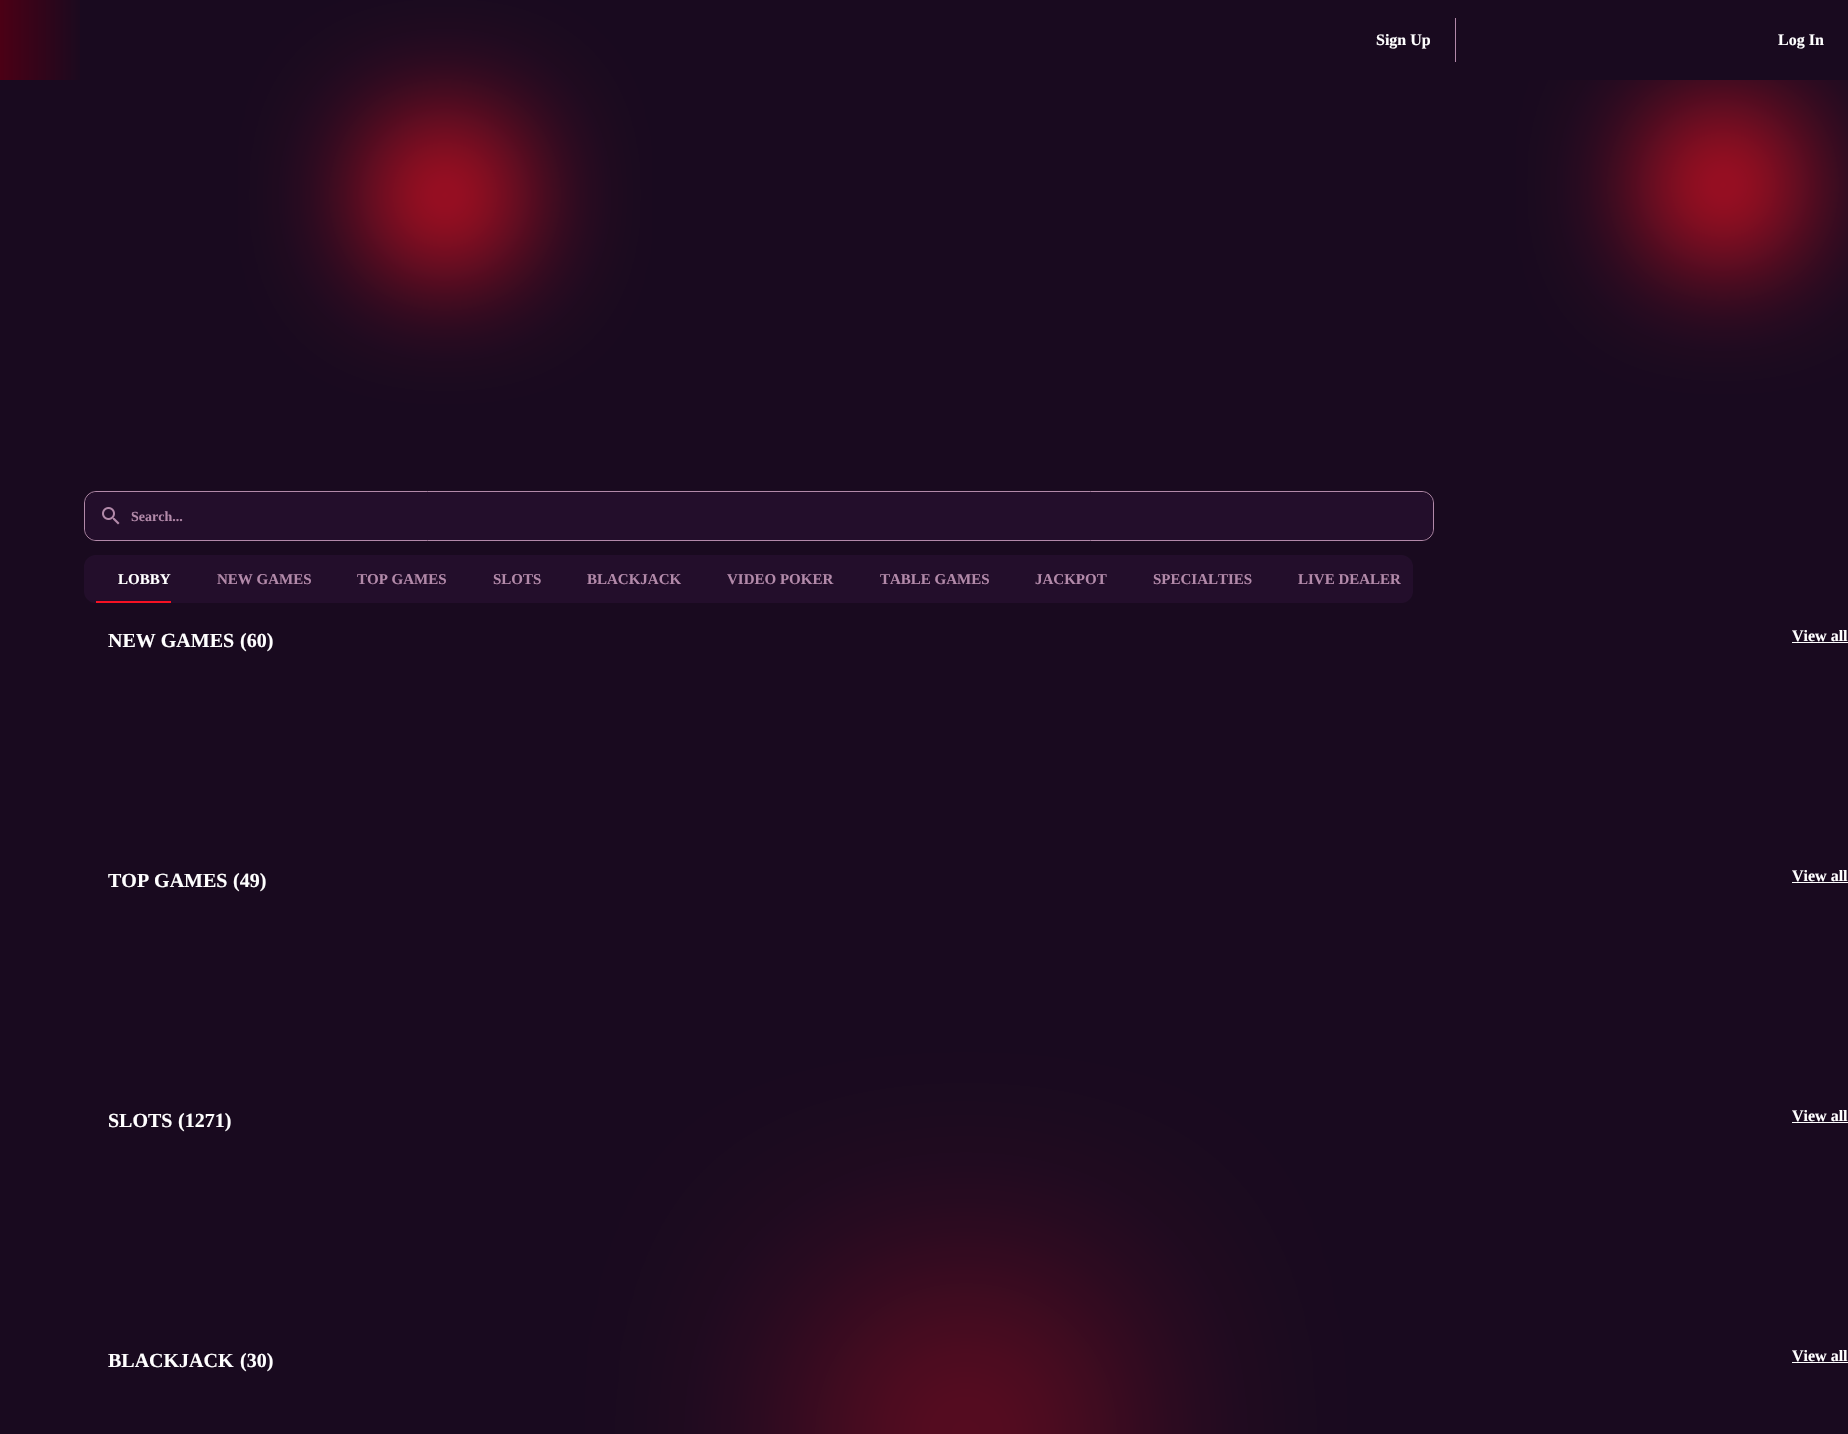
#include "include/core/SkBlurTypes.h"
#include "include/core/SkCanvas.h"
#include "include/core/SkData.h"
#include "include/core/SkFont.h"
#include "include/core/SkFontMgr.h"
#include "include/core/SkImage.h"
#include "include/core/SkMaskFilter.h"
#include "include/core/SkPaint.h"
#include "include/core/SkPathBuilder.h"
#include "include/core/SkTextBlob.h"
#include "include/effects/SkDashPathEffect.h"
#include "include/effects/SkGradientShader.h"
#include "include/utils/SkParsePath.h"

extern sk_sp<SkFontMgr> fontMgr;

void draw(SkCanvas* canvas) {
    SkPaint p;
    p.setAntiAlias(true);
    auto font = [&](const char* family, int weight, float size, bool italic = false) {
        SkFontStyle style(weight, SkFontStyle::kNormal_Width,
            italic ? SkFontStyle::kItalic_Slant : SkFontStyle::kUpright_Slant);
        SkFont result(fontMgr->matchFamilyStyle(family, style), size);
        result.setSubpixel(true);
        return result;
    };
    auto drawPhoto = [&](const char* path, float l, float t, float r, float b) {
        auto image = SkImages::DeferredFromEncodedData(SkData::MakeFromFileName(path));
        canvas->drawImageRect(image, SkRect::MakeLTRB(l, t, r, b), SkSamplingOptions());
    };
    canvas->clear(0xFF190A1F);
    p.setColor(0xFFF71123);
    p.setMaskFilter(SkMaskFilter::MakeBlur(kNormal_SkBlurStyle, 60));
    canvas->drawRoundRect(SkRect::MakeLTRB(370, 120, 520, 270), 75, 75, p);
    p.setMaskFilter(nullptr);
    {
        const SkColor colors[] = {0xFF4B0015, 0xFF190A1F};
        const float stops[] = {0, 1};
        const SkPoint ends[] = {{0, 40}, {84, 40}};
        p.setShader(SkGradientShader::MakeLinear(ends, colors, stops, 2, SkTileMode::kClamp));
        p.setAlpha(255);
    }
    canvas->drawRect(SkRect::MakeLTRB(0, 0, 80, 80), p);
    auto font1 = font("Liberation Serif", 700, 16);
    p.setShader(nullptr);
    p.setColor(0xFFFFFFFF);
    canvas->drawString("Sign Up", 1376, 45, font1, p);
    p.setColor(0xFFB289A9);
    canvas->drawRect(SkRect::MakeLTRB(1455, 18, 1456, 62), p);
    canvas->save();
    canvas->clipRect(SkRect::MakeLTRB(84, 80, 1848, 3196));
    p.setColor(0xFFF71123);
    p.setMaskFilter(SkMaskFilter::MakeBlur(kNormal_SkBlurStyle, 60));
    canvas->drawRoundRect(SkRect::MakeLTRB(1648, 110, 1798, 260), 75, 75, p);
    p.setMaskFilter(nullptr);
    canvas->restore();
    p.setColor(0xFFFFFFFF);
    canvas->drawString("Log In", 1778, 45, font1, p);
    p.setStyle(SkPaint::kStroke_Style);
    p.setStrokeWidth(1);
    p.setColor(0xFFB289A9);
    canvas->drawRoundRect(SkRect::MakeLTRB(84.5f, 491.5f, 1433.5f, 540.5f), 11.5f, 11.5f, p);
    p.setStyle(SkPaint::kFill_Style);
    p.setColor(0xFF230E2B);
    canvas->drawRoundRect(SkRect::MakeLTRB(85, 492, 1433, 540), 12, 12, p);
    drawPhoto("media/1.png", 102, 507, 120, 525);
    auto font2 = font("Liberation Serif", 700, 14);
    p.setColor(0xFFB289A9);
    canvas->drawString("Search...", 131, 521, font2, p);
    p.setColor(0xFF230E2B);
    canvas->drawRoundRect(SkRect::MakeLTRB(84, 555, 1413, 603), 12, 12, p);
    auto font3 = font("Liberation Serif", 700, 15);
    p.setColor(0xFFFFFFFF);
    canvas->drawString("LOBBY", 118, 584, font3, p);
    p.setColor(0xFFF71123);
    canvas->drawRect(SkRect::MakeLTRB(96, 601, 171, 603), p);
    p.setColor(0xFFB289A9);
    {
        const struct { const char* s; float x, y; } items[] = {
            {"NEW GAMES", 217, 584},
            {"TOP GAMES", 357, 584},
            {"SLOTS", 493, 584},
            {"BLACKJACK", 587, 584},
            {"VIDEO POKER", 727, 584},
            {"TABLE GAMES", 880, 584},
            {"JACKPOT", 1035, 584},
            {"SPECIALTIES", 1153, 584},
            {"LIVE DEALER", 1298, 584},
        };
        for (auto [s, x, y] : items) {
            canvas->drawString(s, x, y, font3, p);
        }
    }
    auto font4 = font("Liberation Serif", 700, 20);
    p.setColor(0xFFFFFFFF);
    canvas->drawString("NEW GAMES", 108, 647, font4, p);
    canvas->drawString("(60)", 240, 647, font4, p);
    canvas->drawString("View all", 1792, 641, font1, p);
    canvas->drawRect(SkRect::MakeLTRB(1792, 642, 1848, 643), p);
    canvas->drawString("TOP GAMES", 108, 887, font4, p);
    canvas->drawString("(49)", 233, 887, font4, p);
    canvas->drawString("View all", 1792, 881, font1, p);
    canvas->drawRect(SkRect::MakeLTRB(1792, 882, 1848, 883), p);
    canvas->drawString("SLOTS", 108, 1127, font4, p);
    canvas->drawString("(1271)", 178, 1127, font4, p);
    canvas->drawString("View all", 1792, 1121, font1, p);
    canvas->drawRect(SkRect::MakeLTRB(1792, 1122, 1848, 1123), p);
    canvas->drawString("BLACKJACK", 108, 1367, font4, p);
    canvas->drawString("(30)", 240, 1367, font4, p);
    canvas->drawString("View all", 1792, 1361, font1, p);
    canvas->drawRect(SkRect::MakeLTRB(1792, 1362, 1848, 1363), p);
    p.setColor(0xFFF71123);
    p.setMaskFilter(SkMaskFilter::MakeBlur(kNormal_SkBlurStyle, 160));
    canvas->drawRoundRect(SkRect::MakeLTRB(866, 1334, 1066, 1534), 100, 100, p);
    p.setMaskFilter(nullptr);
}
